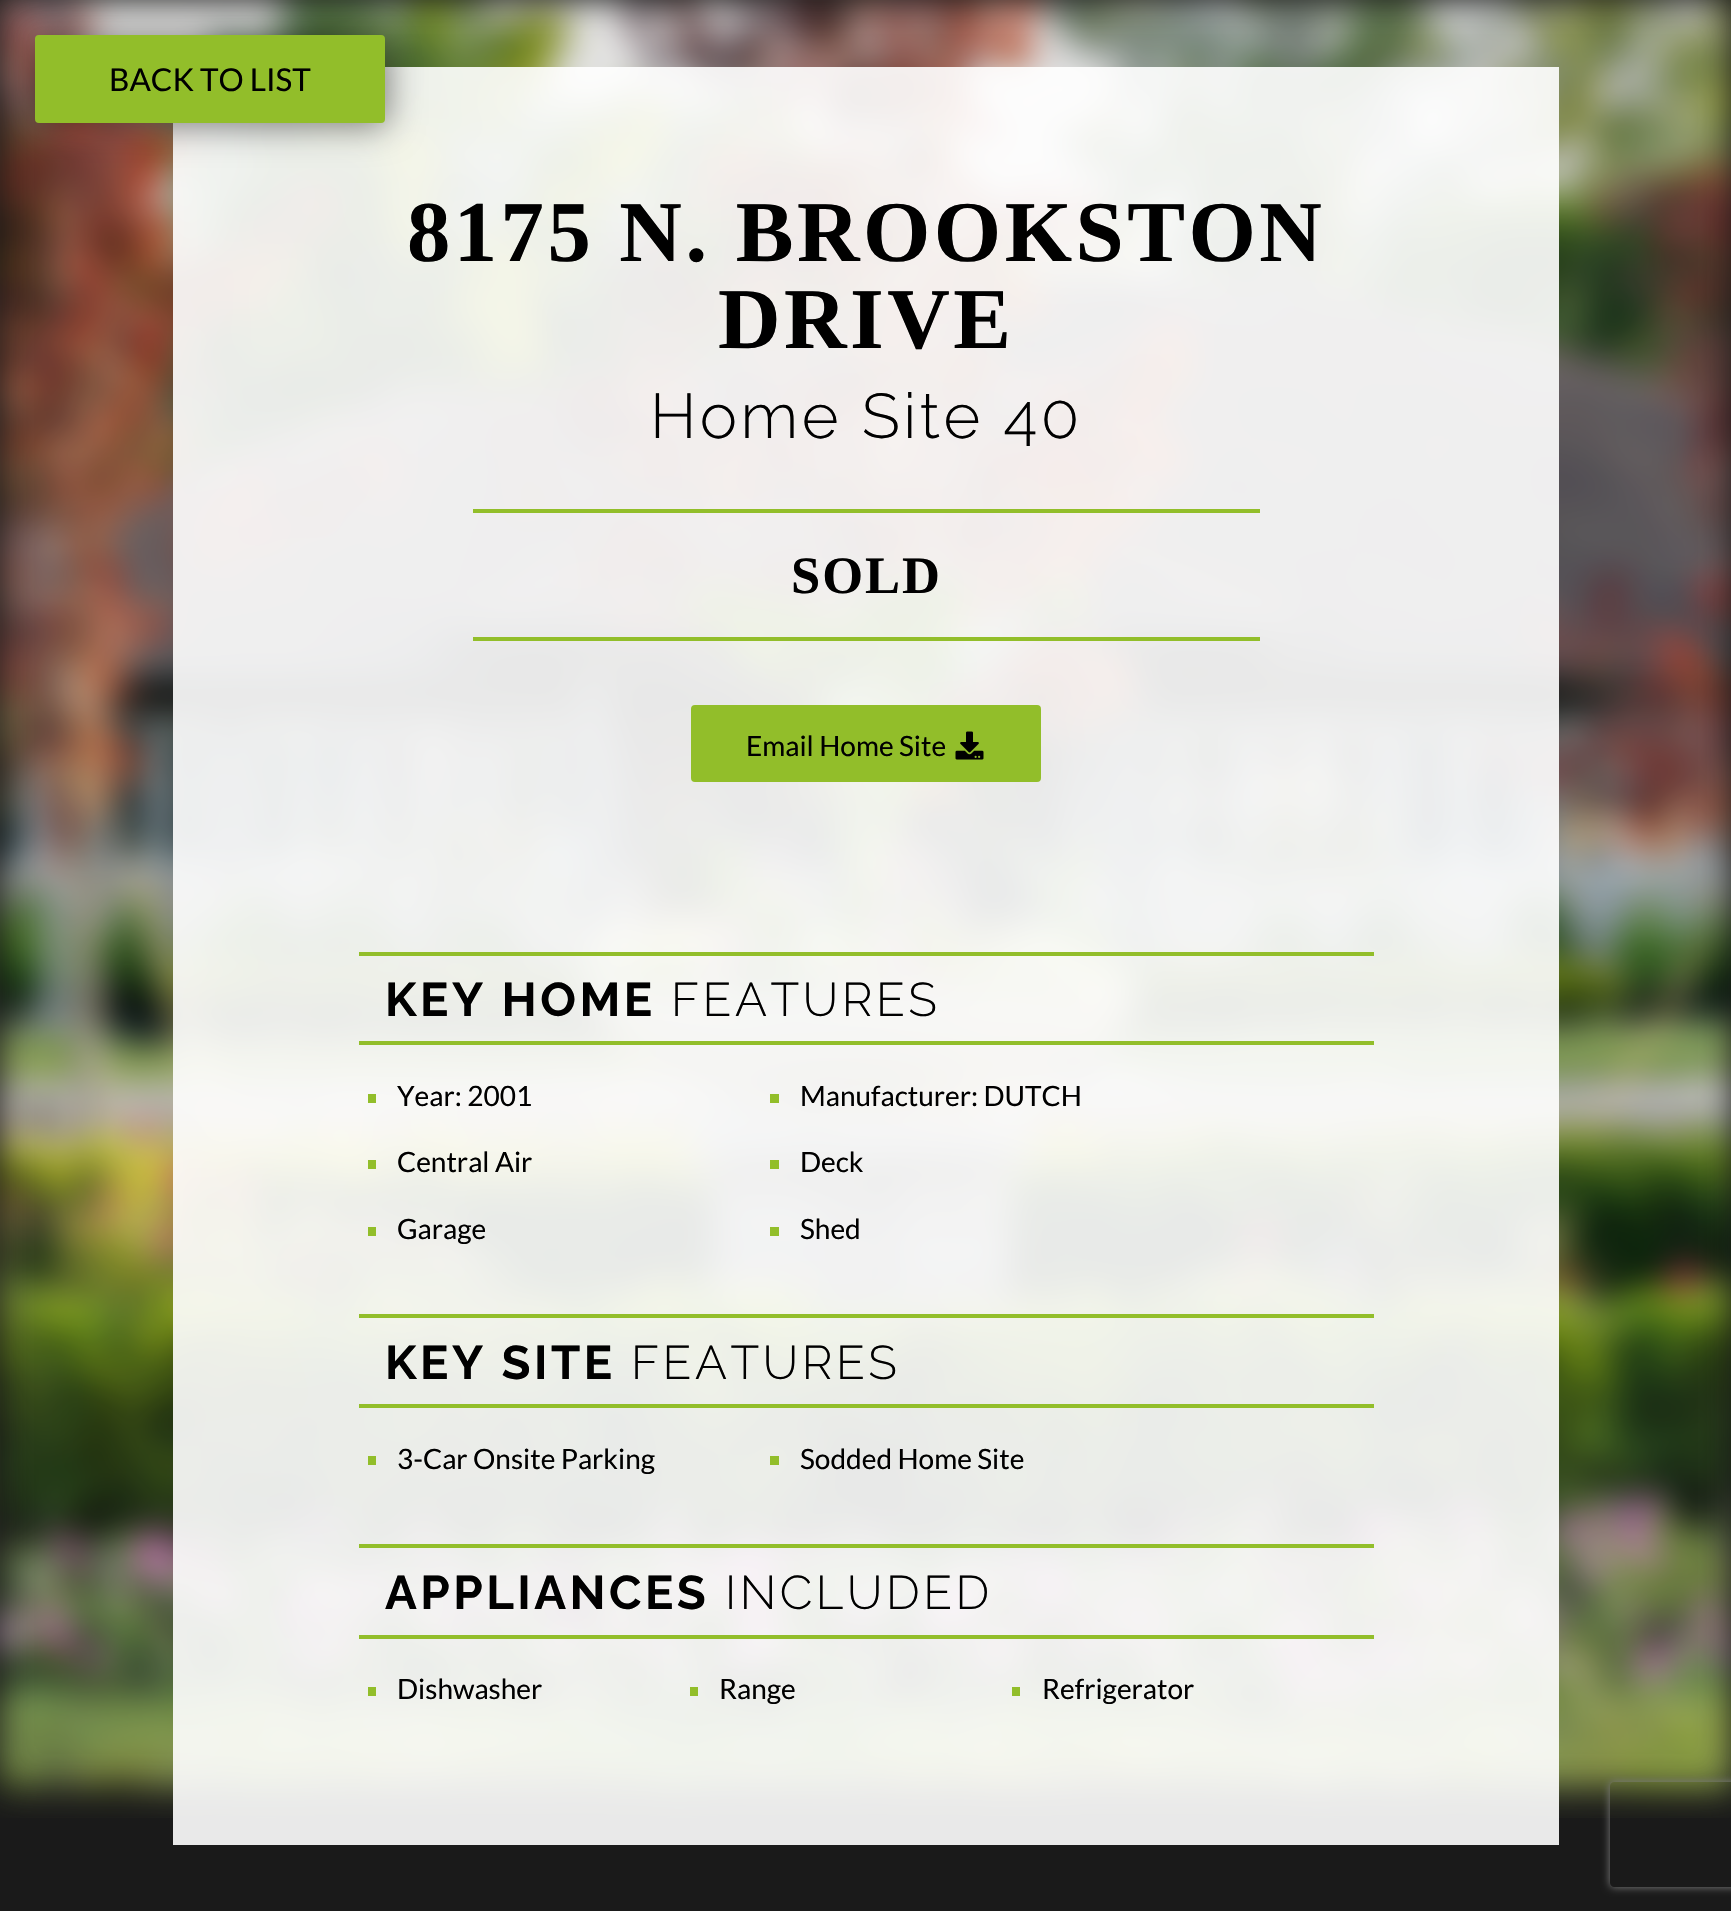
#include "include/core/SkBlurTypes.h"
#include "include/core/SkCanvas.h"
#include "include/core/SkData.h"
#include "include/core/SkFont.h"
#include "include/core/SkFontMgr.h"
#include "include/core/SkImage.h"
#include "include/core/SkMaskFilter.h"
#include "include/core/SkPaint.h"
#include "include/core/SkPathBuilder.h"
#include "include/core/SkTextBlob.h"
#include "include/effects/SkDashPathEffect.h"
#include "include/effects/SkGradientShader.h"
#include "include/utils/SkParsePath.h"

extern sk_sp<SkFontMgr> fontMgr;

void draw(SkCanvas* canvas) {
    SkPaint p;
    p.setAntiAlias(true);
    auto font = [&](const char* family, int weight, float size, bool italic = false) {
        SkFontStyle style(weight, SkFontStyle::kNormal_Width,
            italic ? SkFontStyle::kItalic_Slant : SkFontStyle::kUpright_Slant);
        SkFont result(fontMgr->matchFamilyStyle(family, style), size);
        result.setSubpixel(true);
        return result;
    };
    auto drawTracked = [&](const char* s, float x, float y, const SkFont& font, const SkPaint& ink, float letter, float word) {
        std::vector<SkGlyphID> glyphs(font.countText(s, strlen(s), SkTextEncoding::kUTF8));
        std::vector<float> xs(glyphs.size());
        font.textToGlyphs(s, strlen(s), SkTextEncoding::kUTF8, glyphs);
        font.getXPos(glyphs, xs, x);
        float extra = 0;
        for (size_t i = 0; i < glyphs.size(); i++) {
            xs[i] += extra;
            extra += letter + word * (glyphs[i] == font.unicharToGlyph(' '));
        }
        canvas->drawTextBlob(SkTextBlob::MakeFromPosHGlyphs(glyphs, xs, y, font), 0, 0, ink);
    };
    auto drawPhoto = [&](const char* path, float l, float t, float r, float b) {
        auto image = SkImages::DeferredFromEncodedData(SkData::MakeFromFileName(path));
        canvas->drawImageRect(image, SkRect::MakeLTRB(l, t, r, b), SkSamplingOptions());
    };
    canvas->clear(0xFF1A1A1A);
    drawPhoto("media/1.png", 0, 0, 1731, 1818);
    p.setColor(0xE6FFFFFF);
    canvas->drawRect(SkRect::MakeLTRB(173, 67, 1559, 1845), p);
    p.setColor(0x80000000);
    p.setMaskFilter(SkMaskFilter::MakeBlur(kNormal_SkBlurStyle, 17.5f));
    canvas->drawRoundRect(SkRect::MakeLTRB(37, 39, 387, 126), 4, 4, p);
    p.setMaskFilter(nullptr);
    p.setColor(0xFF92BE2A);
    canvas->drawRoundRect(SkRect::MakeLTRB(37, 37, 383, 121), 2, 2, p);
    p.setStyle(SkPaint::kStroke_Style);
    p.setStrokeWidth(4);
    canvas->drawRoundRect(SkRect::MakeLTRB(37, 37, 383, 121), 2, 2, p);
    auto font1 = font("Lato", 400, 31.5f);
    p.setStyle(SkPaint::kFill_Style);
    p.setColor(0xFF000000);
    canvas->drawString("BACK TO LIST", 109, 91, font1, p);
    auto font2 = font("Liberation Serif", 700, 86.6f);
    drawTracked("8175 N. BROOKSTON", 407, 261, font2, p, 3.5f, 0);
    drawTracked("DRIVE", 718, 348, font2, p, 3.5f, 0);
    auto font3 = font("Raleway", 300, 63);
    drawTracked("Home Site 40", 650, 438, font3, p, 3.5f, 0);
    p.setColor(0xFF92BE2A);
    canvas->drawRect(SkRect::MakeLTRB(473, 509, 1260, 513), p);
    canvas->drawRect(SkRect::MakeLTRB(473, 637, 1260, 641), p);
    auto font4 = font("Liberation Serif", 700, 52.5f);
    p.setColor(0xFF000000);
    drawTracked("SOLD", 791, 593, font4, p, 2, 0);
    p.setColor(0xFF92BE2A);
    canvas->drawRoundRect(SkRect::MakeLTRB(693, 707, 1039, 780), 2, 2, p);
    p.setStyle(SkPaint::kStroke_Style);
    canvas->drawRoundRect(SkRect::MakeLTRB(693, 707, 1039, 780), 2, 2, p);
    auto font5 = font("Lato", 400, 28);
    p.setStyle(SkPaint::kFill_Style);
    p.setColor(0xFF000000);
    canvas->drawString("Email Home Site", 746, 756, font5, p);
    drawPhoto("media/2.png", 955, 731, 984, 760);
    p.setColor(0xFF92BE2A);
    canvas->drawRect(SkRect::MakeLTRB(359, 952, 1374, 956), p);
    canvas->drawRect(SkRect::MakeLTRB(359, 1041, 1374, 1045), p);
    auto font6 = font("Raleway", 700, 47.25f);
    p.setColor(0xFF000000);
    drawTracked("KEY HOME", 385, 1016, font6, p, 3.5f, 0);
    auto font7 = font("Raleway", 300, 47.25f);
    drawTracked("FEATURES", 671, 1016, font7, p, 3.5f, 0);
    p.setColor(0xFF92BE2A);
    canvas->drawRect(SkRect::MakeLTRB(368, 1094, 376, 1103), p);
    p.setColor(0xFF000000);
    canvas->drawString("Year: 2001", 397, 1106, font5, p);
    p.setColor(0xFF92BE2A);
    canvas->drawRect(SkRect::MakeLTRB(770, 1094, 779, 1103), p);
    p.setColor(0xFF000000);
    canvas->drawString("Manufacturer: DUTCH", 800, 1106, font5, p);
    p.setColor(0xFF92BE2A);
    canvas->drawRect(SkRect::MakeLTRB(368, 1160, 376, 1169), p);
    p.setColor(0xFF000000);
    canvas->drawString("Central Air", 397, 1172, font5, p);
    p.setColor(0xFF92BE2A);
    canvas->drawRect(SkRect::MakeLTRB(770, 1160, 779, 1169), p);
    p.setColor(0xFF000000);
    canvas->drawString("Deck", 800, 1172, font5, p);
    p.setColor(0xFF92BE2A);
    canvas->drawRect(SkRect::MakeLTRB(368, 1227, 376, 1236), p);
    p.setColor(0xFF000000);
    canvas->drawString("Garage", 397, 1239, font5, p);
    p.setColor(0xFF92BE2A);
    canvas->drawRect(SkRect::MakeLTRB(770, 1227, 779, 1236), p);
    p.setColor(0xFF000000);
    canvas->drawString("Shed", 800, 1239, font5, p);
    p.setColor(0xFF92BE2A);
    canvas->drawRect(SkRect::MakeLTRB(359, 1314, 1374, 1318), p);
    canvas->drawRect(SkRect::MakeLTRB(359, 1404, 1374, 1408), p);
    p.setColor(0xFF000000);
    drawTracked("KEY SITE", 385, 1379, font6, p, 3.5f, 0);
    drawTracked("FEATURES", 631, 1379, font7, p, 3.5f, 0);
    p.setColor(0xFF92BE2A);
    canvas->drawRect(SkRect::MakeLTRB(368, 1456, 376, 1465), p);
    p.setColor(0xFF000000);
    canvas->drawString("3-Car Onsite Parking", 397, 1469, font5, p);
    p.setColor(0xFF92BE2A);
    canvas->drawRect(SkRect::MakeLTRB(770, 1456, 779, 1465), p);
    p.setColor(0xFF000000);
    canvas->drawString("Sodded Home Site", 800, 1469, font5, p);
    p.setColor(0xFF92BE2A);
    canvas->drawRect(SkRect::MakeLTRB(359, 1544, 1374, 1548), p);
    canvas->drawRect(SkRect::MakeLTRB(359, 1635, 1374, 1639), p);
    p.setColor(0xFF000000);
    drawTracked("APPLIANCES", 385, 1609, font6, p, 3.5f, 0);
    drawTracked("INCLUDED", 725, 1609, font7, p, 3.5f, 0);
    p.setColor(0xFF92BE2A);
    canvas->drawRect(SkRect::MakeLTRB(368, 1687, 376, 1696), p);
    p.setColor(0xFF000000);
    canvas->drawString("Dishwasher", 397, 1699, font5, p);
    p.setColor(0xFF92BE2A);
    canvas->drawRect(SkRect::MakeLTRB(690, 1687, 698, 1696), p);
    p.setColor(0xFF000000);
    canvas->drawString("Range", 719, 1699, font5, p);
    p.setColor(0xFF92BE2A);
    canvas->drawRect(SkRect::MakeLTRB(1012, 1687, 1020, 1696), p);
    p.setColor(0xFF000000);
    canvas->drawString("Refrigerator", 1042, 1699, font5, p);
    canvas->save();
    canvas->clipPath(SkPathBuilder(SkPathFillType::kEvenOdd).moveTo(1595, 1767).lineTo(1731, 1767).lineTo(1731, 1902).lineTo(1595, 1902).close().moveTo(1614, 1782).lineTo(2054, 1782).cubicTo(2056, 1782, 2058, 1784, 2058, 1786).lineTo(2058, 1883).cubicTo(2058, 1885, 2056, 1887, 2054, 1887).lineTo(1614, 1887).cubicTo(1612, 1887, 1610, 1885, 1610, 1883).lineTo(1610, 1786).cubicTo(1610, 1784, 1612, 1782, 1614, 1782).close().detach(), true);
    p.setColor(0xFF808080);
    p.setMaskFilter(SkMaskFilter::MakeBlur(kNormal_SkBlurStyle, 4.5f));
    canvas->drawRoundRect(SkRect::MakeLTRB(1610, 1782, 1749, 1887), 4, 4, p);
    p.setMaskFilter(nullptr);
    canvas->restore();
}
